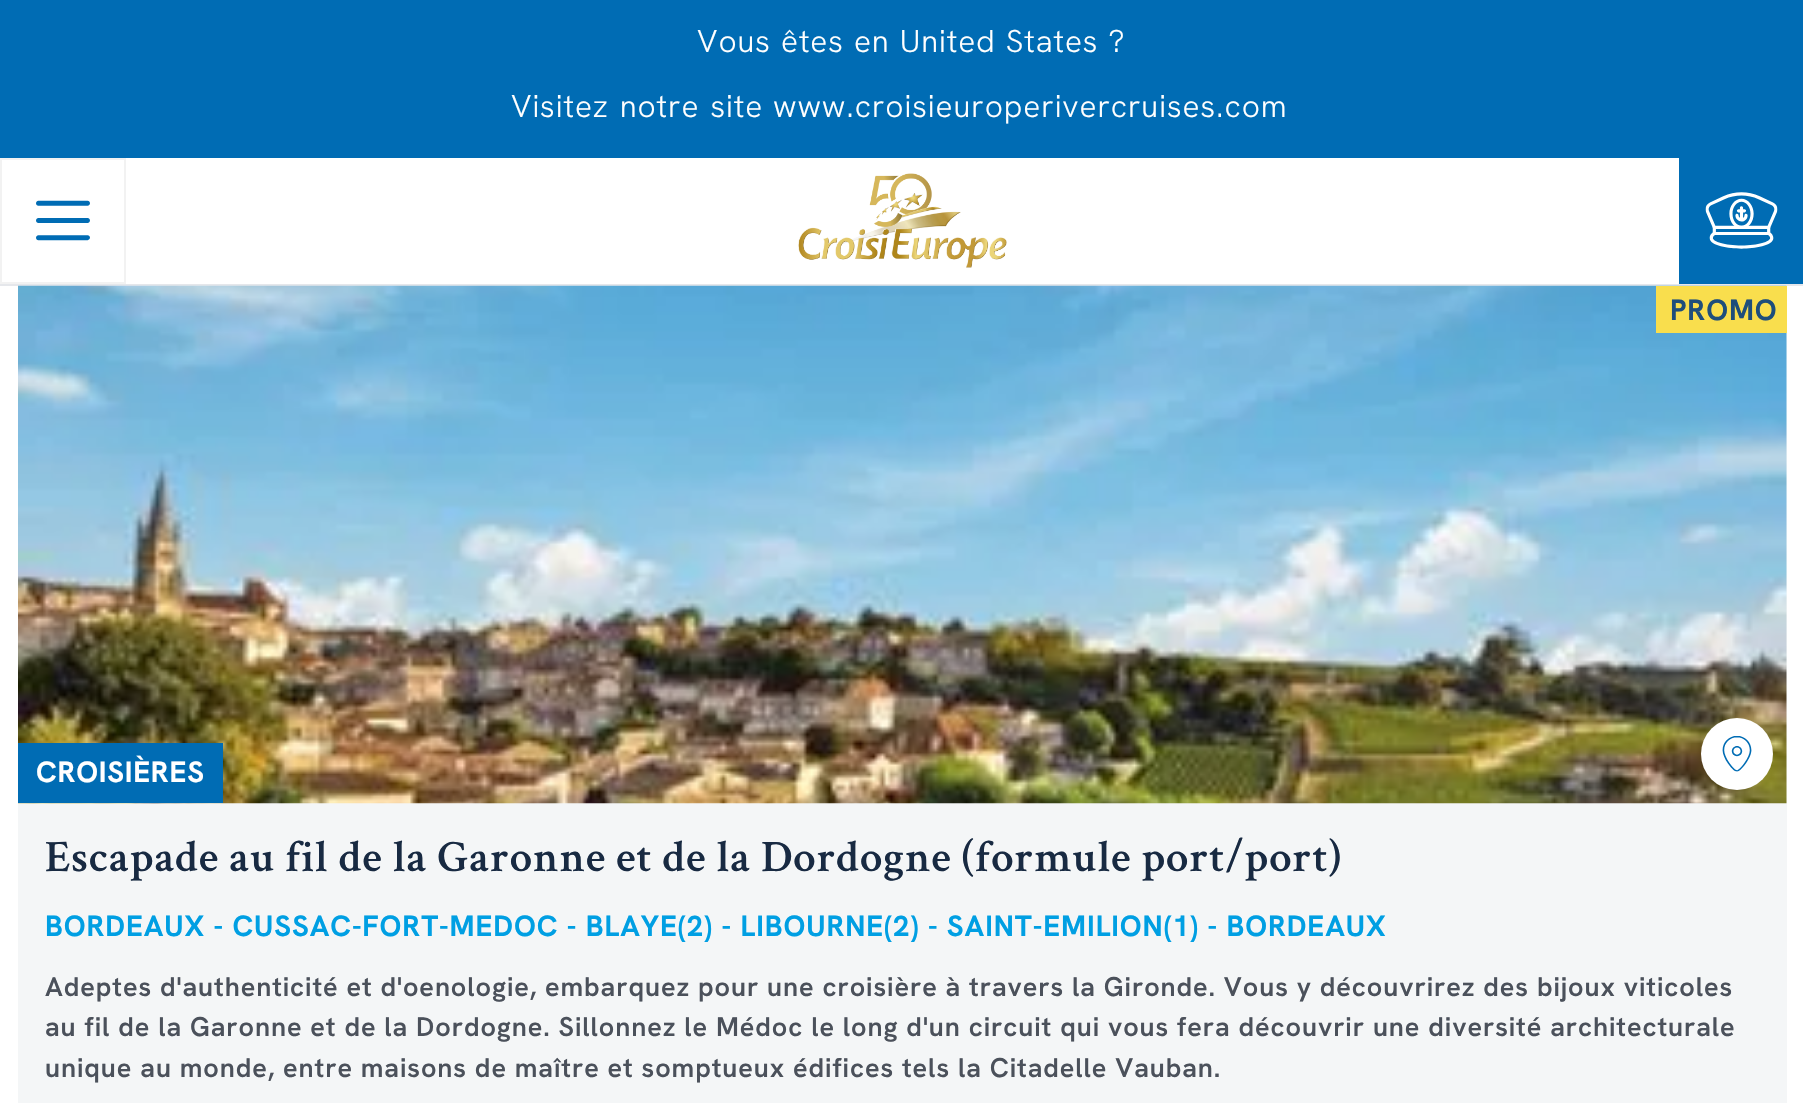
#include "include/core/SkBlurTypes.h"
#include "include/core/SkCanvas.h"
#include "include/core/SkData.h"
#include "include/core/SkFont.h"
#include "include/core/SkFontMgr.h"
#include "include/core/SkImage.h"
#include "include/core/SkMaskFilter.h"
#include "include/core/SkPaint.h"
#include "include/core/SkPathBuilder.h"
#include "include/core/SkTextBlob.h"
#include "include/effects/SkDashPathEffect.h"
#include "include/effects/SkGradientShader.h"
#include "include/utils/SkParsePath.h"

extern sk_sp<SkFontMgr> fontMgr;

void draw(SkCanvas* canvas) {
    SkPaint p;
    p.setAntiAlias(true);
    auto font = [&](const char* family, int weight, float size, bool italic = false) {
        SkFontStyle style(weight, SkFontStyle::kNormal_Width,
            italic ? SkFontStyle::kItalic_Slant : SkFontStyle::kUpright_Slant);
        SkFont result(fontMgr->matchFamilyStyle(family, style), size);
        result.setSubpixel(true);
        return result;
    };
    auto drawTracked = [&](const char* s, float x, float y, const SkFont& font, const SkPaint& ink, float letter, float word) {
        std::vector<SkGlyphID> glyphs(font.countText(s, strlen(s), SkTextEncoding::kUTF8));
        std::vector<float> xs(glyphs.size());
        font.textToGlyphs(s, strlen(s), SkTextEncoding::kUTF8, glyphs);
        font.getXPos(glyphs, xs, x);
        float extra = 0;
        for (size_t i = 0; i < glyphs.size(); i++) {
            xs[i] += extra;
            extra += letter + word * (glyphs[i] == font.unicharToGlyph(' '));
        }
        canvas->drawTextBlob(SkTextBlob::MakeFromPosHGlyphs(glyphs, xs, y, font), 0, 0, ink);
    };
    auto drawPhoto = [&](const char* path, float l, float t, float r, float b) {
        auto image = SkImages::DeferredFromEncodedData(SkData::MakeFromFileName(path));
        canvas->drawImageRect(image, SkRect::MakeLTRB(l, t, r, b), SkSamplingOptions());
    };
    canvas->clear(0xFFFFFFFF);
    p.setColor(0xFF006CB4);
    canvas->drawRect(SkRect::MakeLTRB(0, 0, 1803, 158), p);
    auto font1 = font("Hanken Grotesk", 300, 31.5f);
    p.setColor(0xFFFFFFFF);
    drawTracked("Vous êtes en United States ?", 697, 52, font1, p, 0.9f, 1);
    drawTracked("Visitez notre site", 511, 117, font1, p, 0.9f, 2);
    drawTracked("www.croisieuroperivercruises.com", 773, 117, font1, p, 0.9f, 0);
    p.setColor(0xFFE5E7EB);
    canvas->drawRect(SkRect::MakeLTRB(0, 284, 1803, 286), p);
    p.setStyle(SkPaint::kStroke_Style);
    p.setStrokeWidth(2);
    p.setColor(0xFFF2F2F2);
    canvas->drawRect(SkRect::MakeLTRB(1, 159, 125, 283), p);
    drawPhoto("media/1.png", 36, 200, 90, 241);
    drawPhoto("media/2.png", 798, 173, 1007, 268);
    p.setStyle(SkPaint::kFill_Style);
    p.setColor(0xFF006CB4);
    canvas->drawRect(SkRect::MakeLTRB(1679, 158, 1803, 284), p);
    drawPhoto("media/3.png", 1705, 192, 1778, 249);
    p.setColor(0xFFF4F6F7);
    canvas->drawRect(SkRect::MakeLTRB(18, 333, 1787, 1103), p);
    drawPhoto("media/4.png", 18, 285, 1787, 804);
    p.setColor(0xFFF9DE4D);
    canvas->drawRect(SkRect::MakeLTRB(1656, 286, 1787, 333), p);
    auto font2 = font("Hanken Grotesk", 700, 29.25f);
    p.setColor(0xFF1E4E7B);
    drawTracked("PROMO", 1670, 320, font2, p, 0.9f, 0);
    p.setColor(0xFF006CB4);
    canvas->drawRect(SkRect::MakeLTRB(18, 743, 223, 803), p);
    p.setColor(0xFFFFFFFF);
    drawTracked("CROISIÈRES", 36, 782, font2, p, 0.75f, 0);
    canvas->drawCircle(1737, 754, 36, p);
    drawPhoto("media/5.png", 1722, 736, 1752, 772);
    auto font3 = font("Crimson Text", 600, 45);
    p.setColor(0xFF182A42);
    drawTracked("Escapade au fil de la Garonne et de la Dordogne (formule port/port)", 45, 871, font3, p, 0.9f, 0);
    p.setColor(0xFF009FE3);
    drawTracked("BORDEAUX - CUSSAC-FORT-MEDOC - BLAYE(2) - LIBOURNE(2) - SAINT-EMILION(1) - BORDEAUX", 45, 936, font2, p, 0.9f, 0);
    auto font4 = font("Hanken Grotesk", 600, 27);
    p.setColor(0xFF4B515B);
    {
        const struct { const char* s; float x, y; } items[] = {
            {"Adeptes d'authenticité et d'oenologie, embarquez pour une croisière à travers la Gironde. Vous y découvrirez des bijoux viticoles", 45, 996},
            {"au fil de la Garonne et de la Dordogne. Sillonnez le Médoc le long d'un circuit qui vous fera découvrir une diversité architecturale", 45, 1036},
            {"unique au monde, entre maisons de maître et somptueux édifices tels la Citadelle Vauban.", 45, 1077},
        };
        for (auto [s, x, y] : items) {
            drawTracked(s, x, y, font4, p, 0.9f, 0);
        }
    }
}
